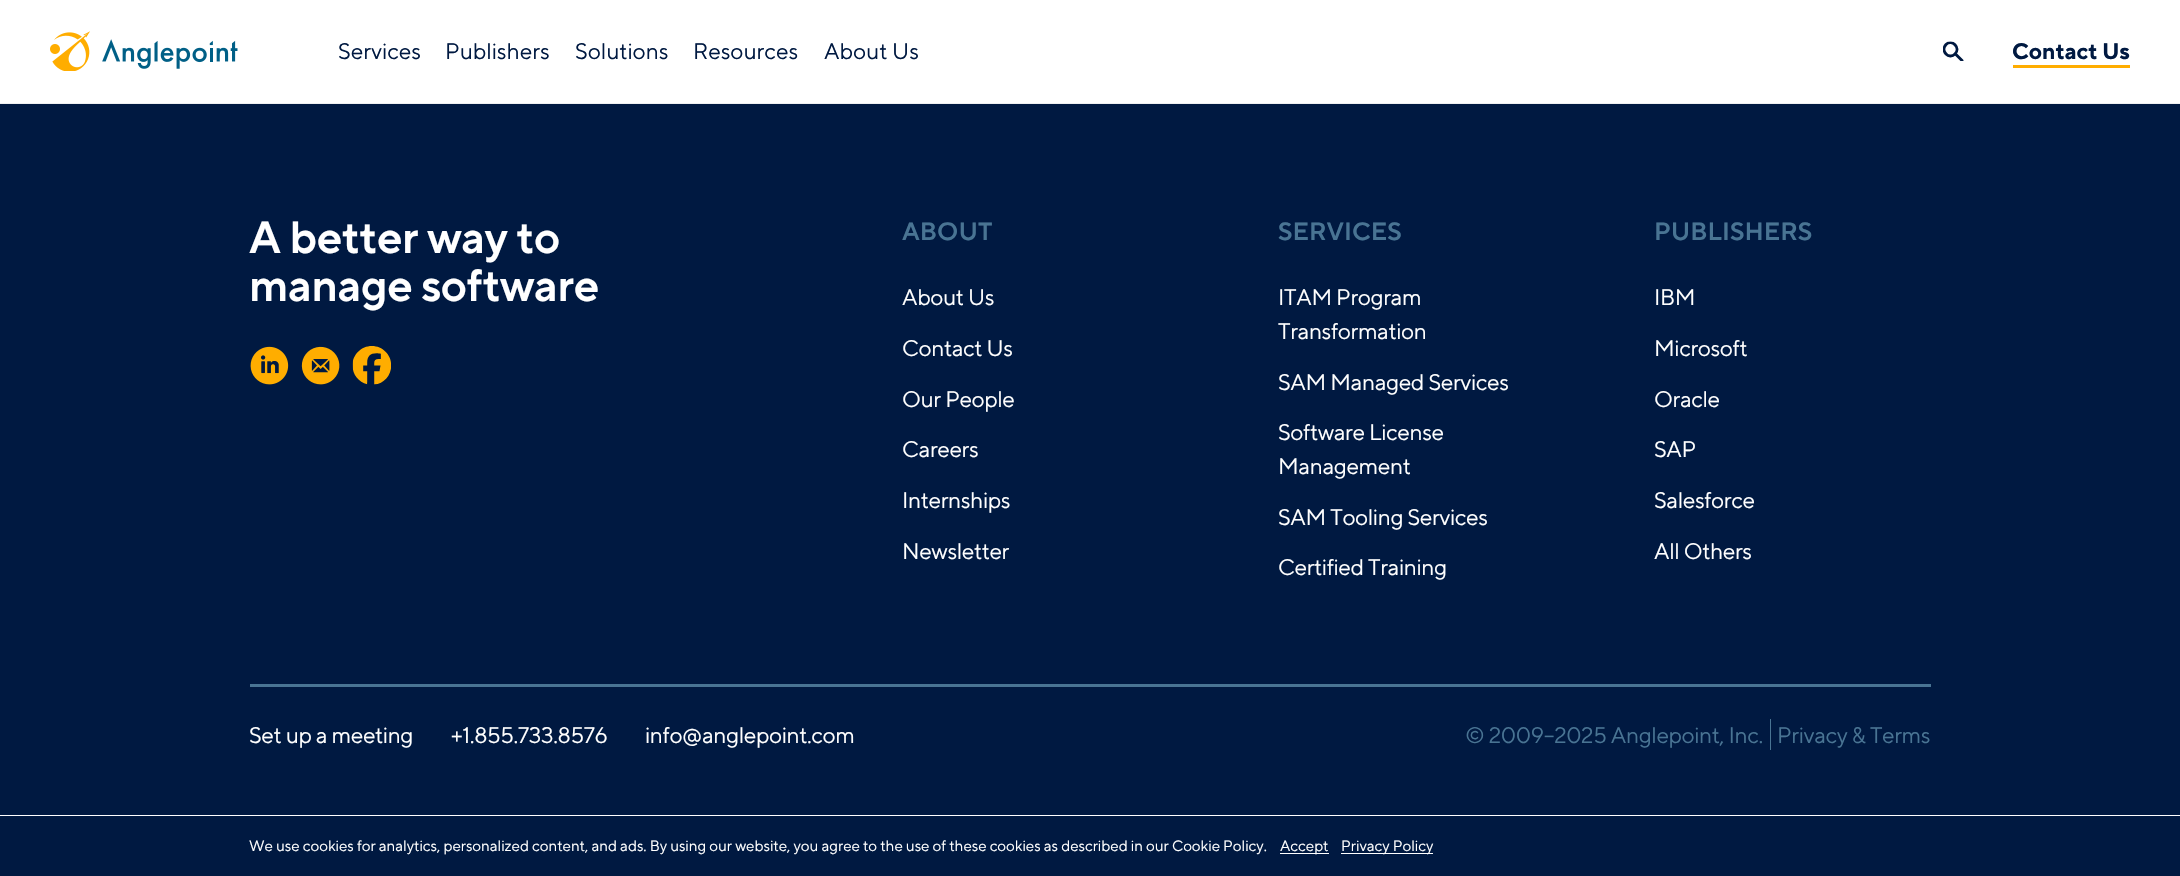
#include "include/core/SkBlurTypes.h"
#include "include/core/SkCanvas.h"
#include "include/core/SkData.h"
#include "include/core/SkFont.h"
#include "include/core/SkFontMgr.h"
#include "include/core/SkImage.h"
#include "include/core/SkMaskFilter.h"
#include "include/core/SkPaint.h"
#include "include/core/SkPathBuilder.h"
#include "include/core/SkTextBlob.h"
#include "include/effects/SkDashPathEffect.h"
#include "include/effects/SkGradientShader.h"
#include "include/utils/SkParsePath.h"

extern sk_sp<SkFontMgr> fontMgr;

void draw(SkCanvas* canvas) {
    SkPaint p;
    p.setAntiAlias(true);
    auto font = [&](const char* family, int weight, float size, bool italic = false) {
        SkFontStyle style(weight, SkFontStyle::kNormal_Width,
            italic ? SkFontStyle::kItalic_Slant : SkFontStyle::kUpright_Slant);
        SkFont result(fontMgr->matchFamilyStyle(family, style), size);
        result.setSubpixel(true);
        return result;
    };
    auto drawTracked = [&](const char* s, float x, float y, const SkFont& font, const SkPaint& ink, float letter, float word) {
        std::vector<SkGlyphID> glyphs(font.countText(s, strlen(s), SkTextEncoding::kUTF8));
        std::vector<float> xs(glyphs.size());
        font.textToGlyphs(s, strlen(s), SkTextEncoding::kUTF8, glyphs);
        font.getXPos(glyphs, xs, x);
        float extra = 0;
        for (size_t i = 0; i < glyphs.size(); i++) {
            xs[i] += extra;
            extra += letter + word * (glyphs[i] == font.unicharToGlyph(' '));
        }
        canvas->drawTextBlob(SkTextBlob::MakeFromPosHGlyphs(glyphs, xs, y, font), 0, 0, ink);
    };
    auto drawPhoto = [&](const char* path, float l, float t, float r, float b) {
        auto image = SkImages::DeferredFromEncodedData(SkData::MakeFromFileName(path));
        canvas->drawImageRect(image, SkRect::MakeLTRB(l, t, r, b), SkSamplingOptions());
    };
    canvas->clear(0xFF001941);
    p.setColor(0xFFFFFFFF);
    canvas->drawRect(SkRect::MakeLTRB(0, 0, 2180, 103), p);
    p.setColor(0xFFEFF0F1);
    canvas->drawRect(SkRect::MakeLTRB(0, 103, 2180, 104), p);
    drawPhoto("media/1.png", 50, 31, 238, 71);
    auto font1 = font("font", 400, 22.5f);
    p.setColor(0xFF001941);
    {
        const struct { const char* s; float x, y; } items[] = {
            {"Services", 338, 59},
            {"Publishers", 445, 59},
            {"Solutions", 575, 59},
            {"Resources", 693, 59},
            {"About Us", 824, 59},
        };
        for (auto [s, x, y] : items) {
            canvas->drawString(s, x, y, font1, p);
        }
    }
    canvas->save();
    canvas->clipRect(SkRect::MakeLTRB(1943, 41, 1964, 61));
    canvas->clipPath(SkPathBuilder().moveTo(1942.5f, 62).lineTo(1963.5f, 62).lineTo(1963.5f, 41.5f).lineTo(1942.5f, 41.5f).close().detach(), true);
    p.setStyle(SkPaint::kStroke_Style);
    p.setStrokeWidth(2.9f);
    p.setStrokeCap(SkPaint::kRound_Cap);
    canvas->drawPath(SkPathBuilder().moveTo(1955, 54).cubicTo(1961, 48, 1952, 38.5f, 1946, 44.5f).cubicTo(1940, 51, 1949, 60, 1955, 54).close().detach(), p);
    canvas->restore();
    canvas->save();
    canvas->clipRect(SkRect::MakeLTRB(1943, 41, 1964, 61));
    canvas->drawPath(SkPathBuilder().moveTo(1955.5f, 54).lineTo(1962, 60.5f).detach(), p);
    canvas->restore();
    auto font2 = font("font", 700, 22.5f);
    p.setStyle(SkPaint::kFill_Style);
    canvas->drawString("Contact Us", 2012, 59, font2, p);
    p.setColor(0xFFFFAD00);
    canvas->drawRect(SkRect::MakeLTRB(2013, 65, 2130, 68), p);
    p.setColor(0xFF497493);
    canvas->drawRect(SkRect::MakeLTRB(250, 684, 1931, 687), p);
    auto font3 = font("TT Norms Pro", 600, 45);
    p.setColor(0xFFFFFFFF);
    drawTracked("A better way to", 249, 253, font3, p, -0.4f, 0);
    drawTracked("manage software", 249, 301, font3, p, -0.4f, 0);
    drawPhoto("media/2.png", 250, 346, 289, 385);
    drawPhoto("media/3.png", 301, 346, 340, 385);
    drawPhoto("media/4.png", 352, 346, 391, 385);
    auto font4 = font("TT Norms Pro", 600, 25);
    p.setColor(0xFF497493);
    drawTracked("ABOUT", 902, 240, font4, p, 0.1f, 0);
    p.setColor(0xFFFFFFFF);
    {
        const struct { const char* s; float x, y; } items[] = {
            {"About Us", 902, 305},
            {"Contact Us", 902, 356},
            {"Our People", 902, 407},
            {"Careers", 902, 457},
            {"Internships", 902, 508},
            {"Newsletter", 902, 559},
        };
        for (auto [s, x, y] : items) {
            drawTracked(s, x, y, font1, p, -0.35f, 0);
        }
    }
    p.setColor(0xFF497493);
    drawTracked("SERVICES", 1278, 240, font4, p, 0.1f, 0);
    p.setColor(0xFFFFFFFF);
    {
        const struct { const char* s; float x, y; } items[] = {
            {"ITAM Program", 1278, 305},
            {"Transformation", 1278, 339},
            {"SAM Managed Services", 1278, 390},
            {"Software License", 1278, 440},
            {"Management", 1278, 474},
            {"SAM Tooling Services", 1278, 525},
            {"Certified Training", 1278, 575},
        };
        for (auto [s, x, y] : items) {
            drawTracked(s, x, y, font1, p, -0.35f, 0);
        }
    }
    p.setColor(0xFF497493);
    drawTracked("PUBLISHERS", 1654, 240, font4, p, 0.1f, 0);
    p.setColor(0xFFFFFFFF);
    {
        const struct { const char* s; float x, y; } items[] = {
            {"IBM", 1654, 305},
            {"Microsoft", 1654, 356},
            {"Oracle", 1654, 407},
            {"SAP", 1654, 457},
            {"Salesforce", 1654, 508},
            {"All Others", 1654, 559},
            {"Set up a meeting", 249, 743},
            {"+1.855.733.8576", 451, 743},
            {"info@anglepoint.com", 645, 743},
        };
        for (auto [s, x, y] : items) {
            drawTracked(s, x, y, font1, p, -0.35f, 0);
        }
    }
    p.setColor(0xFF497493);
    drawTracked("© 2009–2025 Anglepoint, Inc.", 1465, 743, font1, p, -0.35f, 0);
    drawTracked("Privacy & Terms", 1777, 743, font1, p, -0.35f, 0);
    canvas->drawRect(SkRect::MakeLTRB(1770, 719, 1771, 750), p);
    p.setColor(0xFFFFFFFF);
    canvas->drawRect(SkRect::MakeLTRB(0, 815, 2180, 816), p);
    auto font5 = font("font", 400, 15);
    canvas->drawString("We use cookies for analytics, personalized content, and ads. By using our website, you agree to the use of these cookies as described in our Cookie Policy.", 249, 851, font5, p);
    canvas->drawRect(SkRect::MakeLTRB(1280, 853, 1329, 854), p);
    canvas->drawString("Accept", 1280, 851, font5, p);
    canvas->drawRect(SkRect::MakeLTRB(1341, 853, 1433, 854), p);
    canvas->drawString("Privacy Policy", 1341, 851, font5, p);
}
